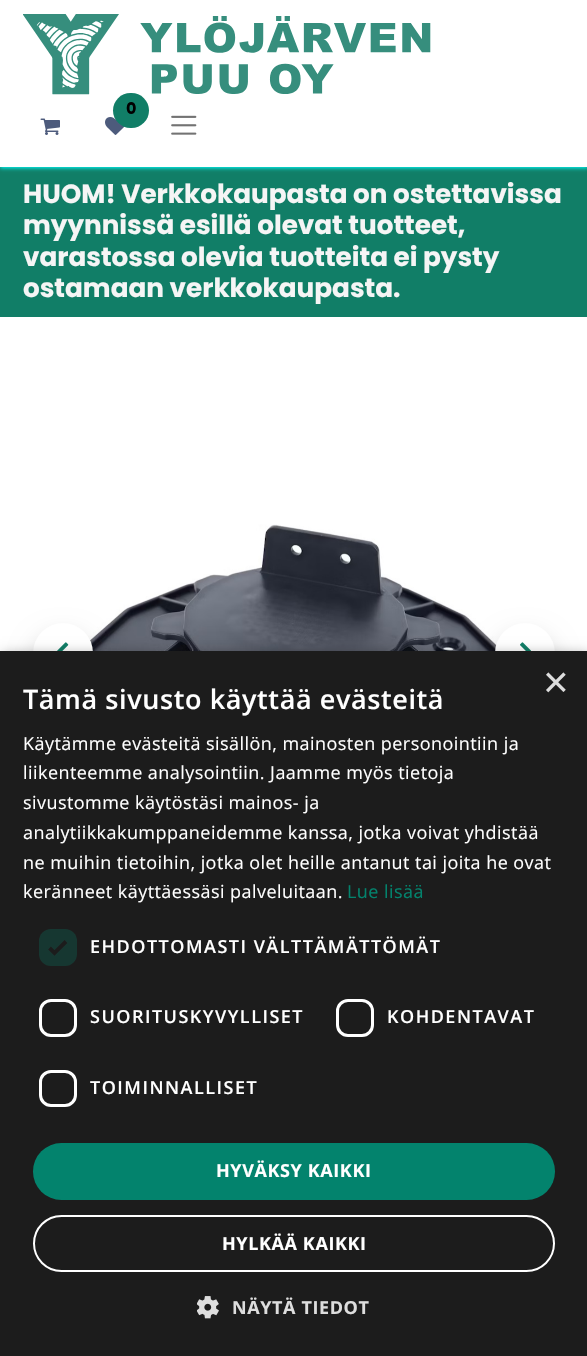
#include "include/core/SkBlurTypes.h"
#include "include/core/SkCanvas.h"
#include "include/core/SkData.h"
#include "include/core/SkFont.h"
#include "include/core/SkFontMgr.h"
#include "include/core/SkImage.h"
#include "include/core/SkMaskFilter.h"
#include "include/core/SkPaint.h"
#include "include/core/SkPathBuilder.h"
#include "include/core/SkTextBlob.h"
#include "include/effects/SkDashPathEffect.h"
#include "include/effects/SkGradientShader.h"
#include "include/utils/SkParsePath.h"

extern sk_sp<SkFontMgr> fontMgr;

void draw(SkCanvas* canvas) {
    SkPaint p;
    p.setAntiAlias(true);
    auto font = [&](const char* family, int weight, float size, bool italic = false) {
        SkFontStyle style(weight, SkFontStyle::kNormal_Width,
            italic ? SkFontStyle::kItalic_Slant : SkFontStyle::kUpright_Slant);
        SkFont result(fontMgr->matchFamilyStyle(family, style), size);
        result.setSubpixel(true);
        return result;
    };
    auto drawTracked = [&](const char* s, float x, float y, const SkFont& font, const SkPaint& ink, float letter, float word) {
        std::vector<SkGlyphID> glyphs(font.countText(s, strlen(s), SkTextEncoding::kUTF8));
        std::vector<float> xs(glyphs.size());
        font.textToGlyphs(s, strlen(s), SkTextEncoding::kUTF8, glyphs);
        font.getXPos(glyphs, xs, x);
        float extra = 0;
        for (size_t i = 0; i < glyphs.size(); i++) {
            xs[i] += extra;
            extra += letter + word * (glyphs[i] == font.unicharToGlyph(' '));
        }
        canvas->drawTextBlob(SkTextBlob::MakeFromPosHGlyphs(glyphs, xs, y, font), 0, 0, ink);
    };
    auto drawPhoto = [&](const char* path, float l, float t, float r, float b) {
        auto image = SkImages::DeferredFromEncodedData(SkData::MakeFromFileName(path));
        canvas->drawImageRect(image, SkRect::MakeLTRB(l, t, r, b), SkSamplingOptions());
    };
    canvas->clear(0xFFFFFFFF);
    p.setColor(0xFF117E67);
    canvas->drawRect(SkRect::MakeLTRB(0, 167, 587, 317), p);
    p.setColor(0xFF00FFFF);
    p.setMaskFilter(SkMaskFilter::MakeBlur(kNormal_SkBlurStyle, 2));
    canvas->drawRect(SkRect::MakeLTRB(0, 2, 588, 168), p);
    p.setMaskFilter(nullptr);
    p.setColor(0xFFFFFFFF);
    canvas->drawRect(SkRect::MakeLTRB(0, 0, 587, 167), p);
    drawPhoto("media/1.png", 23, 14, 431, 95);
    drawPhoto("media/2.png", 105, 117, 125, 135);
    p.setColor(0xFF117E67);
    canvas->drawRoundRect(SkRect::MakeLTRB(113, 93, 149, 128), 17.5f, 17.5f, p);
    auto font1 = font("Poppins", 700, 16);
    p.setColor(0xFF000000);
    canvas->drawString("0", 126, 114, font1, p);
    drawPhoto("media/3.png", 40, 118, 60, 135);
    drawPhoto("media/4.png", 171, 115, 197, 135);
    auto font2 = font("Poppins", 700, 26.25f);
    p.setColor(0xFFF5F5F5);
    {
        const struct { const char* s; float x, y; } items[] = {
            {"HUOM! Verkkokaupasta on ostettavissa", 23, 203},
            {"myynnissä esillä olevat tuotteet,", 23, 234},
            {"varastossa olevia tuotteita ei pysty", 23, 266},
            {"ostamaan verkkokaupasta.", 23, 297},
        };
        for (auto [s, x, y] : items) {
            canvas->drawString(s, x, y, font2, p);
        }
    }
    drawPhoto("media/6.png", 70, 524, 519, 651);
    p.setColor(0x26000000);
    p.setMaskFilter(SkMaskFilter::MakeBlur(kNormal_SkBlurStyle, 12));
    canvas->drawRoundRect(SkRect::MakeLTRB(33, 635, 93, 695), 30, 30, p);
    p.setMaskFilter(nullptr);
    p.setColor(0xFFFFFFFF);
    canvas->drawCircle(63, 653, 30, p);
    drawPhoto("media/5.png", 57, 642, 69, 651);
    p.setColor(0x26000000);
    p.setMaskFilter(SkMaskFilter::MakeBlur(kNormal_SkBlurStyle, 12));
    canvas->drawRoundRect(SkRect::MakeLTRB(495, 635, 555, 695), 30, 30, p);
    p.setMaskFilter(nullptr);
    p.setColor(0xFFFFFFFF);
    canvas->drawCircle(525, 653, 30, p);
    drawPhoto("media/7.png", 520, 642, 531, 651);
    p.setColor(0x59000000);
    p.setMaskFilter(SkMaskFilter::MakeBlur(kNormal_SkBlurStyle, 6));
    canvas->drawRect(SkRect::MakeLTRB(2, 654, 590, 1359), p);
    p.setMaskFilter(nullptr);
    p.setColor(0xFF1C1C1C);
    canvas->drawRect(SkRect::MakeLTRB(0, 651, 587, 1356), p);
    auto font3 = font("Liberation Sans", 400, 44);
    p.setColor(0xFFDDDDDD);
    canvas->drawString("×", 543, 697, font3, p);
    auto font4 = font("Open Sans", 600, 27);
    p.setColor(0xFFFFFFFF);
    drawTracked("Tämä sivusto käyttää evästeitä", 23, 709, font4, p, 0.6f, 0);
    auto font5 = font("Open Sans", 400, 18);
    {
        const struct { const char* s; float x, y; } items[] = {
            {"Käytämme evästeitä sisällön, mainosten personointiin ja", 23, 750},
            {"liikenteemme analysointiin. Jaamme myös tietoja", 23, 779},
            {"sivustomme käytöstäsi mainos- ja", 23, 809},
            {"analytiikkakumppaneidemme kanssa, jotka voivat yhdistää", 23, 839},
            {"ne muihin tietoihin, jotka olet heille antanut tai joita he ovat", 23, 869},
            {"keränneet käyttäessäsi palveluitaan.", 23, 898},
        };
        for (auto [s, x, y] : items) {
            drawTracked(s, x, y, font5, p, 0.45f, 0);
        }
    }
    p.setColor(0xFF03836D);
    drawTracked("Lue lisää", 347, 898, font5, p, 0.45f, 0);
    p.setColor(0xFF163731);
    canvas->drawRoundRect(SkRect::MakeLTRB(39, 929, 77, 966), 12, 12, p);
    p.setStyle(SkPaint::kStroke_Style);
    p.setStrokeWidth(3.9f);
    p.setColor(0xFF1C1C1C);
    canvas->drawPath(SkPathBuilder().moveTo(49.5f, 948).lineTo(54.5f, 953).lineTo(66, 941.5f).detach(), p);
    auto font6 = font("Open Sans", 600, 18);
    p.setStyle(SkPaint::kFill_Style);
    p.setColor(0xFFFFFFFF);
    drawTracked("EHDOTTOMASTI VÄLTTÄMÄTTÖMÄT", 90, 953, font6, p, 1.5f, 0);
    p.setStyle(SkPaint::kStroke_Style);
    p.setStrokeWidth(3);
    canvas->drawRoundRect(SkRect::MakeLTRB(40.5f, 1000.5f, 75.5f, 1035.5f), 10.5f, 10.5f, p);
    p.setStyle(SkPaint::kFill_Style);
    drawTracked("SUORITUSKYVYLLISET", 90, 1023, font6, p, 1.5f, 0);
    p.setStyle(SkPaint::kStroke_Style);
    canvas->drawRoundRect(SkRect::MakeLTRB(337.5f, 1000.5f, 372.5f, 1035.5f), 10.5f, 10.5f, p);
    p.setStyle(SkPaint::kFill_Style);
    drawTracked("KOHDENTAVAT", 387, 1023, font6, p, 1.5f, 0);
    p.setStyle(SkPaint::kStroke_Style);
    canvas->drawRoundRect(SkRect::MakeLTRB(40.5f, 1071.5f, 75.5f, 1105.5f), 10.5f, 10.5f, p);
    p.setStyle(SkPaint::kFill_Style);
    drawTracked("TOIMINNALLISET", 90, 1094, font6, p, 1.5f, 0);
    p.setColor(0xFF03836D);
    canvas->drawRoundRect(SkRect::MakeLTRB(33, 1143, 555, 1200), 28.5f, 28.5f, p);
    auto font7 = font("Open Sans", 700, 18);
    p.setColor(0xFFFFFFFF);
    drawTracked("HYVÄKSY KAIKKI", 216, 1177, font7, p, 0.6f, 0);
    p.setStyle(SkPaint::kStroke_Style);
    p.setStrokeWidth(2);
    canvas->drawRoundRect(SkRect::MakeLTRB(34, 1216, 554, 1271), 27.5f, 27.5f, p);
    p.setStyle(SkPaint::kFill_Style);
    drawTracked("HYLKÄÄ KAIKKI", 222, 1250, font7, p, 0.6f, 0);
    drawPhoto("media/8.png", 197, 1296, 219, 1319);
    p.setColor(0xFFDDDDDD);
    drawTracked("NÄYTÄ TIEDOT", 232, 1314, font7, p, 0.6f, 0);
}
